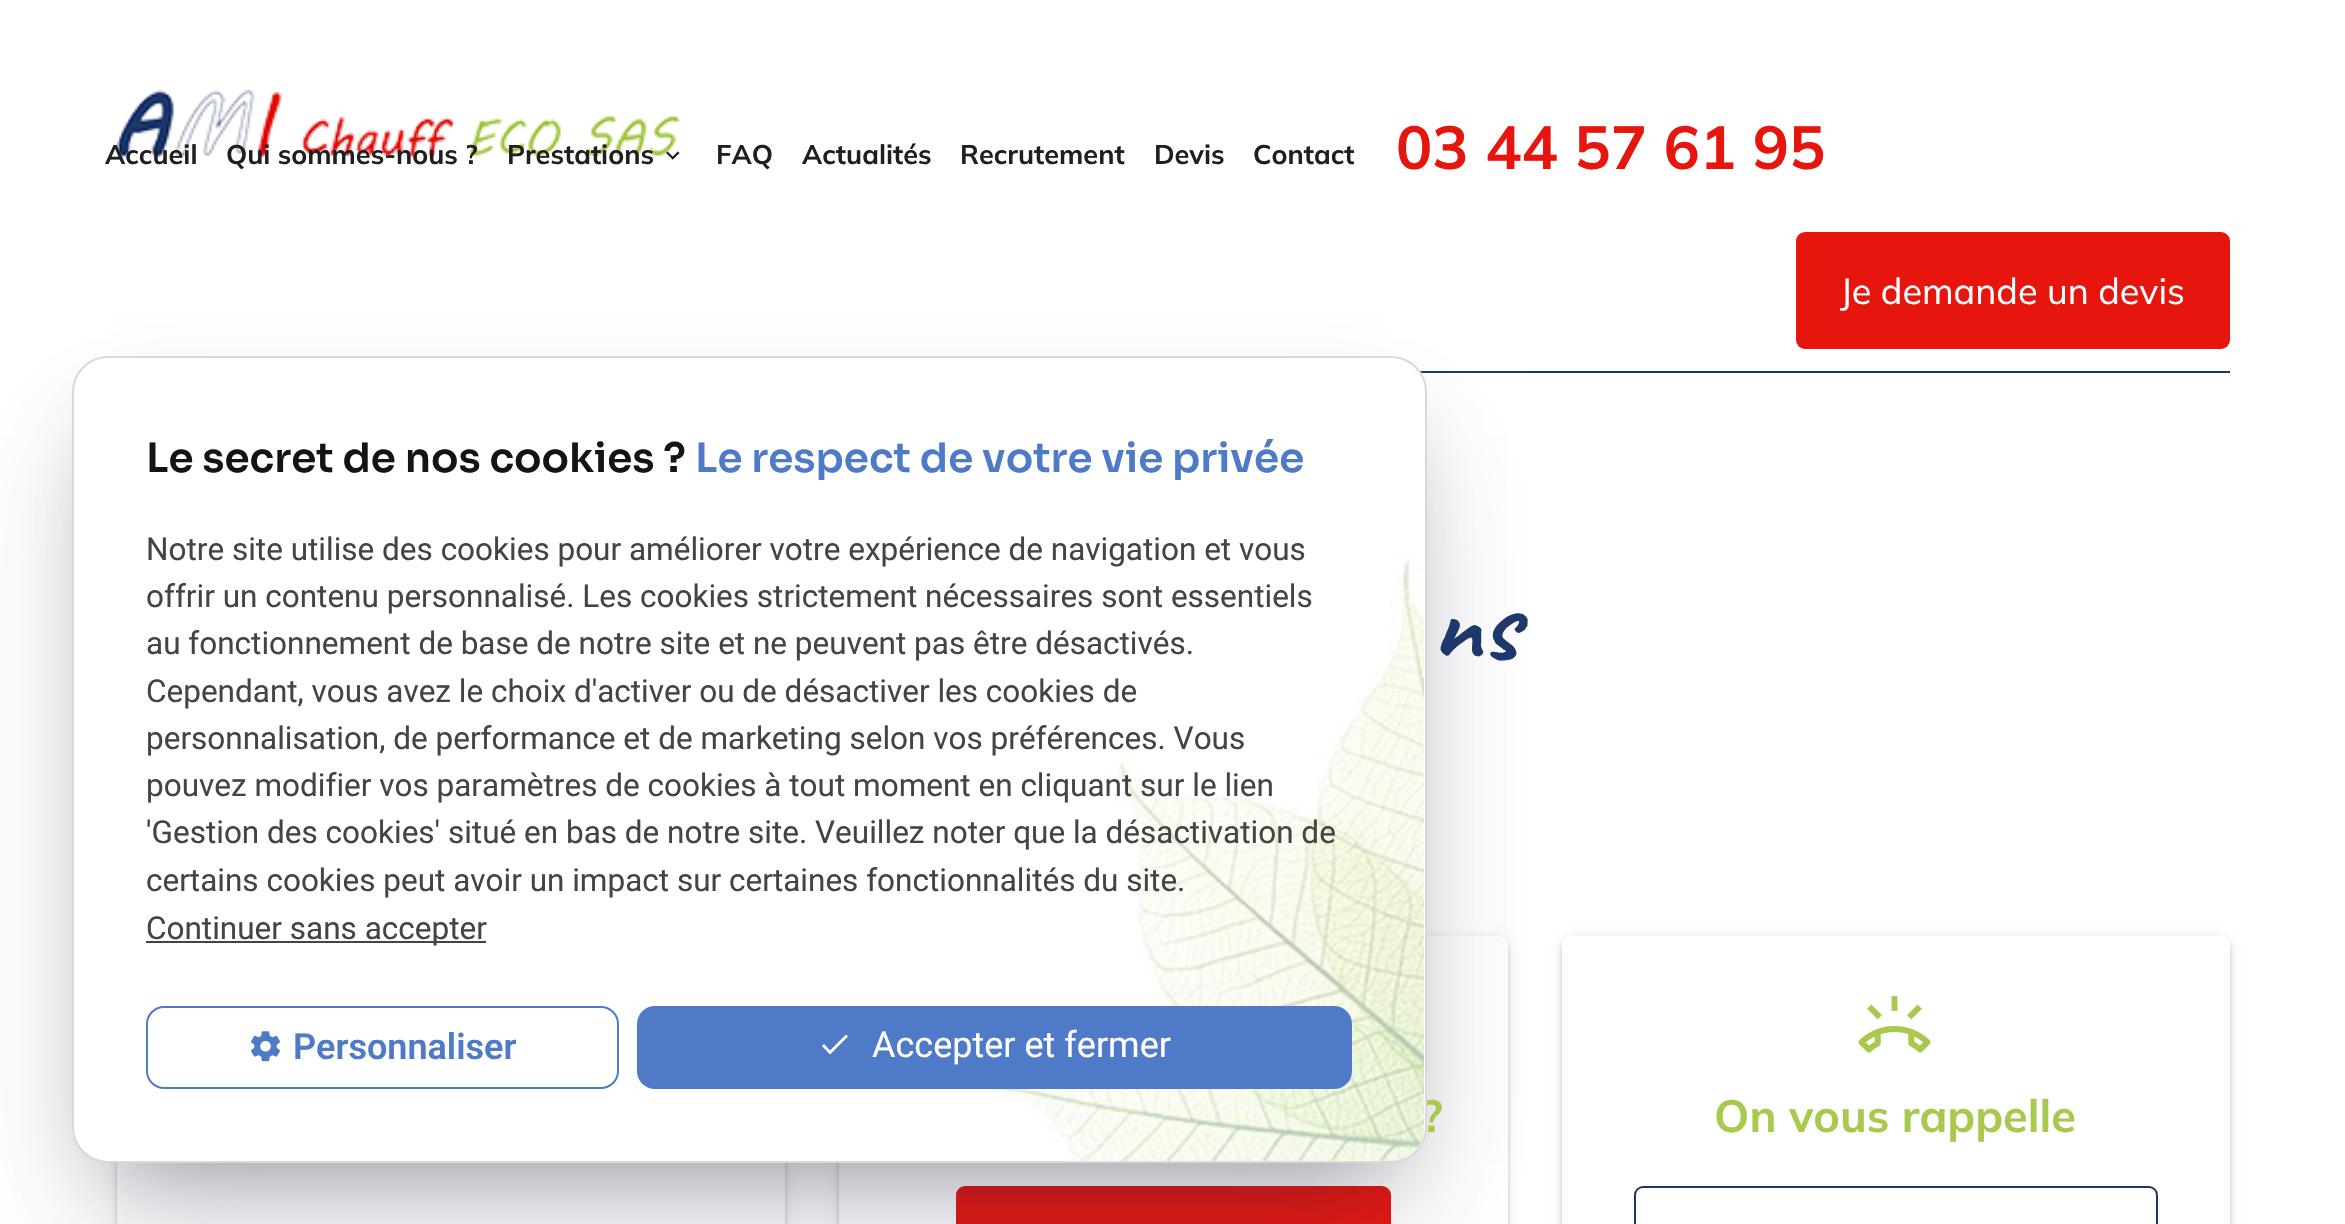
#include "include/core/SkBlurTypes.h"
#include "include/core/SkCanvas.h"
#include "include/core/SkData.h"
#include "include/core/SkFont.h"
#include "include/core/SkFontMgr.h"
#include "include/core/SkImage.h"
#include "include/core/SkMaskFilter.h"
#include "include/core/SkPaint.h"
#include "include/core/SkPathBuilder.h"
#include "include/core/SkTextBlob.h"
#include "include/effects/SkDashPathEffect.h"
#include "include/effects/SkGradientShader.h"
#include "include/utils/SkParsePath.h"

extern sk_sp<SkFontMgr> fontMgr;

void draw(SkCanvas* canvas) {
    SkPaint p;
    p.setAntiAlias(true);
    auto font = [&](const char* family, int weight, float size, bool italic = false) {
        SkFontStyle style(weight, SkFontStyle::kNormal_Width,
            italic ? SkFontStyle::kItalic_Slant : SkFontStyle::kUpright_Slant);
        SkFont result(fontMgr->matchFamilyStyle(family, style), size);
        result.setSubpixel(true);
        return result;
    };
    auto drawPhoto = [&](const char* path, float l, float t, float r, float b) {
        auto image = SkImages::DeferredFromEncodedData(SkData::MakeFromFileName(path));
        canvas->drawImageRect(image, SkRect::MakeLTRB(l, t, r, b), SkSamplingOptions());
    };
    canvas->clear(0xFFFFFFFF);
    drawPhoto("media/1.png", 117, 90, 680, 158);
    auto font1 = font("Mulish", 700, 27);
    p.setColor(0xFF1F1F20);
    {
        const struct { const char* s; float x, y; } items[] = {
            {"Accueil", 105, 164},
            {"Qui sommes-nous ?", 226, 164},
            {"Prestations", 507, 164},
        };
        for (auto [s, x, y] : items) {
            canvas->drawString(s, x, y, font1, p);
        }
    }
    drawPhoto("media/2.png", 666, 151, 680, 160);
    {
        const struct { const char* s; float x, y; } items[] = {
            {"FAQ", 716, 164},
            {"Actualités", 802, 164},
            {"Recrutement", 960, 164},
            {"Devis", 1154, 164},
            {"Contact", 1253, 164},
        };
        for (auto [s, x, y] : items) {
            canvas->drawString(s, x, y, font1, p);
        }
    }
    auto font2 = font("Mulish", 700, 60.5f);
    p.setColor(0xFFE6160F);
    canvas->drawString("03 44 57 61 95", 1396, 169, font2, p);
    canvas->drawRoundRect(SkRect::MakeLTRB(1796, 232, 2230, 349), 9, 9, p);
    auto font3 = font("Mulish", 400, 36);
    p.setColor(0xFFFFFFFF);
    canvas->drawString("Je demande un devis", 1840, 304, font3, p);
    p.setColor(0xFF1E386B);
    canvas->drawRect(SkRect::MakeLTRB(1420, 371, 2230, 373), p);
    p.setColor(0x1F000000);
    p.setMaskFilter(SkMaskFilter::MakeBlur(kNormal_SkBlurStyle, 5.5f));
    canvas->drawRoundRect(SkRect::MakeLTRB(117, 938, 785, 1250), 9, 9, p);
    p.setMaskFilter(nullptr);
    p.setColor(0x24000000);
    p.setMaskFilter(SkMaskFilter::MakeBlur(kNormal_SkBlurStyle, 2));
    canvas->drawRoundRect(SkRect::MakeLTRB(117, 941, 785, 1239), 9, 9, p);
    p.setMaskFilter(nullptr);
    p.setColor(0xFFFFFFFF);
    canvas->drawRect(SkRect::MakeLTRB(117, 1163, 785, 1224), p);
    p.setColor(0x1F000000);
    p.setMaskFilter(SkMaskFilter::MakeBlur(kNormal_SkBlurStyle, 5.5f));
    canvas->drawRoundRect(SkRect::MakeLTRB(839, 938, 1508, 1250), 9, 9, p);
    p.setMaskFilter(nullptr);
    p.setColor(0x24000000);
    p.setMaskFilter(SkMaskFilter::MakeBlur(kNormal_SkBlurStyle, 2));
    canvas->drawRoundRect(SkRect::MakeLTRB(839, 941, 1508, 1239), 9, 9, p);
    p.setMaskFilter(nullptr);
    p.setColor(0xFFFFFFFF);
    canvas->drawRoundRect(SkRect::MakeLTRB(839, 936, 1508, 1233), 9, 9, p);
    p.setColor(0xFFE6160F);
    canvas->drawRoundRect(SkRect::MakeLTRB(956, 1186, 1391, 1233), 9, 9, p);
    p.setColor(0x4D000000);
    p.setMaskFilter(SkMaskFilter::MakeBlur(kNormal_SkBlurStyle, 40.5f));
    canvas->drawRect(SkRect::MakeLTRB(113, 437, 1386, 1163), p);
    p.setMaskFilter(nullptr);
    p.setColor(0x1F000000);
    p.setMaskFilter(SkMaskFilter::MakeBlur(kNormal_SkBlurStyle, 5.5f));
    canvas->drawRoundRect(SkRect::MakeLTRB(1562, 938, 2230, 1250), 9, 9, p);
    p.setMaskFilter(nullptr);
    p.setColor(0x24000000);
    p.setMaskFilter(SkMaskFilter::MakeBlur(kNormal_SkBlurStyle, 2));
    canvas->drawRoundRect(SkRect::MakeLTRB(1562, 941, 2230, 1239), 9, 9, p);
    p.setMaskFilter(nullptr);
    p.setColor(0xFFFFFFFF);
    canvas->drawRoundRect(SkRect::MakeLTRB(1562, 936, 2230, 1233), 9, 9, p);
    p.setColor(0x4032325D);
    p.setMaskFilter(SkMaskFilter::MakeBlur(kNormal_SkBlurStyle, 67.5f));
    canvas->drawRoundRect(SkRect::MakeLTRB(99, 450, 1400, 1204), 9, 9, p);
    p.setMaskFilter(nullptr);
    auto font4 = font("Mulish", 700, 45);
    p.setColor(0xFFA7CA4E);
    canvas->drawString("?", 1422, 1132, font4, p);
    p.setColor(0xFFFFFFFF);
    canvas->drawRoundRect(SkRect::MakeLTRB(73, 357, 1426, 1162), 35, 35, p);
    p.setStyle(SkPaint::kStroke_Style);
    p.setStrokeWidth(2);
    p.setColor(0xFFD9D9D9);
    canvas->drawRoundRect(SkRect::MakeLTRB(73, 357, 1426, 1162), 35, 35, p);
    auto font5 = font("Sora", 600, 40.5f);
    p.setStyle(SkPaint::kFill_Style);
    p.setColor(0xFF141414);
    canvas->drawString("Le secret de nos cookies ?", 146, 472, font5, p);
    p.setColor(0xFF4E7AC7);
    canvas->drawString("Le respect de votre vie privée", 695, 472, font5, p);
    drawPhoto("media/4.png", 974, 553, 1424, 1161);
    auto font6 = font("Roboto", 400, 31.5f);
    p.setColor(0xFF444444);
    {
        const struct { const char* s; float x, y; } items[] = {
            {"Notre site utilise des cookies pour améliorer votre expérience de navigation et vous", 146, 560},
            {"offrir un contenu personnalisé. Les cookies strictement nécessaires sont essentiels", 146, 607},
            {"au fonctionnement de base de notre site et ne peuvent pas être désactivés.", 146, 654},
            {"Cependant, vous avez le choix d'activer ou de désactiver les cookies de", 146, 702},
            {"personnalisation, de performance et de marketing selon vos préférences. Vous", 146, 749},
            {"pouvez modifier vos paramètres de cookies à tout moment en cliquant sur le lien", 146, 796},
            {"'Gestion des cookies' situé en bas de notre site. Veuillez noter que la désactivation de", 146, 843},
            {"certains cookies peut avoir un impact sur certaines fonctionnalités du site.", 146, 891},
        };
        for (auto [s, x, y] : items) {
            canvas->drawString(s, x, y, font6, p);
        }
    }
    canvas->drawRect(SkRect::MakeLTRB(146, 941, 486, 943), p);
    canvas->drawString("Continuer sans accepter", 146, 939, font6, p);
    p.setStyle(SkPaint::kStroke_Style);
    p.setColor(0xFF4E7AC7);
    canvas->drawRoundRect(SkRect::MakeLTRB(147, 1007, 618, 1088), 17, 17, p);
    drawPhoto("media/3.png", 250, 1031, 281, 1062);
    auto font7 = font("Roboto", 600, 36);
    p.setStyle(SkPaint::kFill_Style);
    canvas->drawString("Personnaliser", 293, 1059, font7, p);
    canvas->drawRoundRect(SkRect::MakeLTRB(637, 1006, 1352, 1089), 18, 18, p);
    p.setColor(0xFFFFFFFF);
    canvas->drawPath(SkPathBuilder().moveTo(830, 1050.5f).lineTo(846, 1034.5f).lineTo(848, 1036.5f).lineTo(830, 1054.5f).lineTo(822, 1046).lineTo(824, 1044).close().detach(), p);
    auto font8 = font("Roboto", 400, 36);
    canvas->drawString("Accepter et fermer", 872, 1057, font8, p);
    auto font9 = font("Caveat", 700, 108);
    p.setColor(0xFF1E386B);
    canvas->drawString("ns", 1431, 659, font9, p);
    drawPhoto("media/5.png", 1858, 996, 1931, 1053);
    p.setColor(0xFFA7CA4E);
    canvas->drawString("On vous rappelle", 1714, 1132, font4, p);
    p.setStyle(SkPaint::kStroke_Style);
    p.setColor(0xFF1E386B);
    canvas->drawRoundRect(SkRect::MakeLTRB(1635, 1187, 2157, 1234), 8, 8, p);
}
